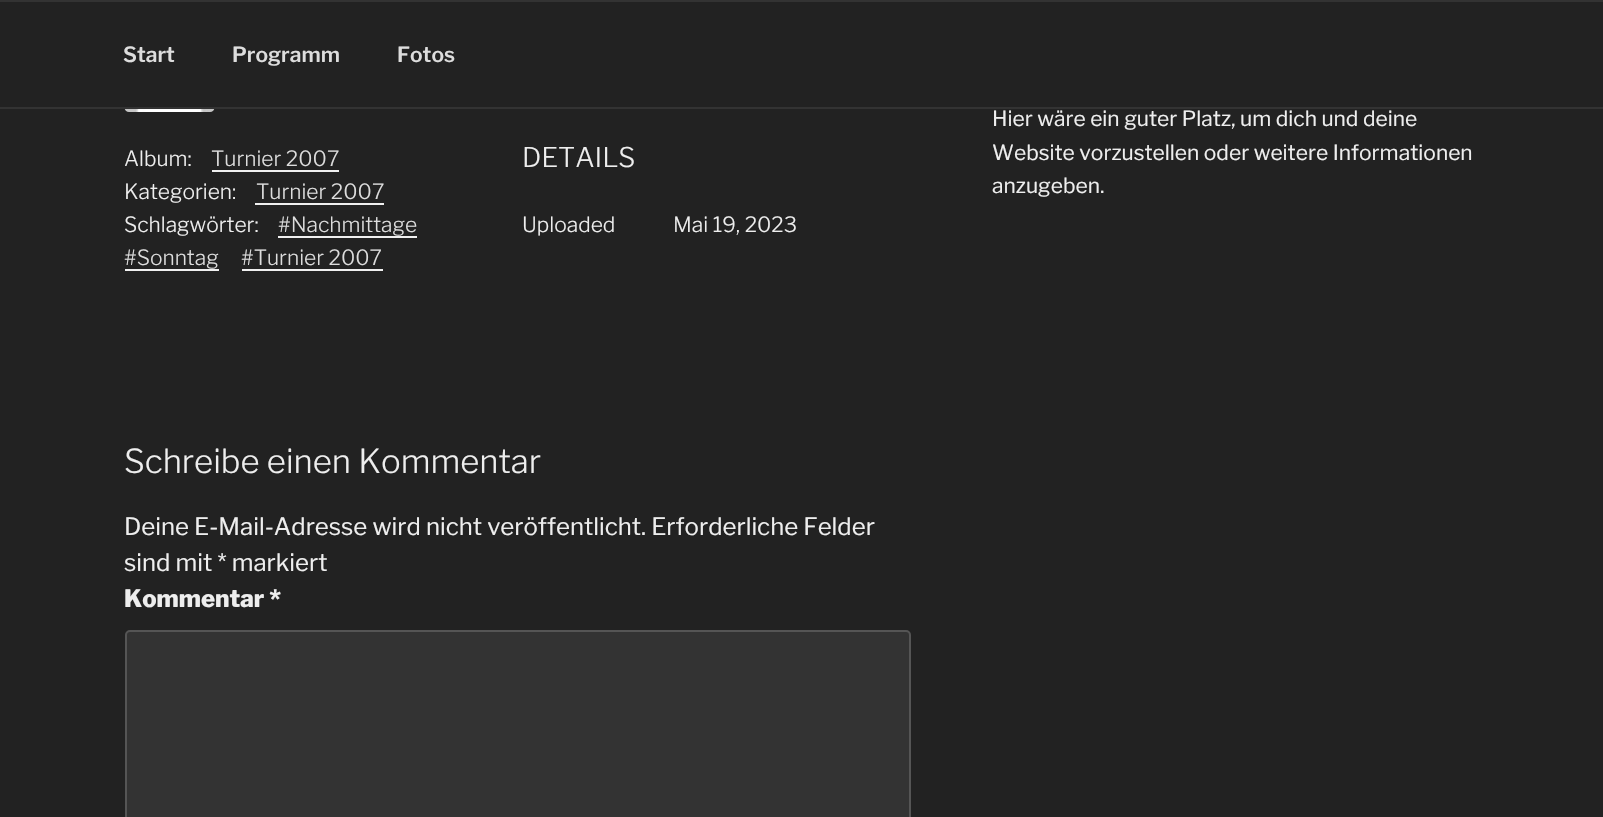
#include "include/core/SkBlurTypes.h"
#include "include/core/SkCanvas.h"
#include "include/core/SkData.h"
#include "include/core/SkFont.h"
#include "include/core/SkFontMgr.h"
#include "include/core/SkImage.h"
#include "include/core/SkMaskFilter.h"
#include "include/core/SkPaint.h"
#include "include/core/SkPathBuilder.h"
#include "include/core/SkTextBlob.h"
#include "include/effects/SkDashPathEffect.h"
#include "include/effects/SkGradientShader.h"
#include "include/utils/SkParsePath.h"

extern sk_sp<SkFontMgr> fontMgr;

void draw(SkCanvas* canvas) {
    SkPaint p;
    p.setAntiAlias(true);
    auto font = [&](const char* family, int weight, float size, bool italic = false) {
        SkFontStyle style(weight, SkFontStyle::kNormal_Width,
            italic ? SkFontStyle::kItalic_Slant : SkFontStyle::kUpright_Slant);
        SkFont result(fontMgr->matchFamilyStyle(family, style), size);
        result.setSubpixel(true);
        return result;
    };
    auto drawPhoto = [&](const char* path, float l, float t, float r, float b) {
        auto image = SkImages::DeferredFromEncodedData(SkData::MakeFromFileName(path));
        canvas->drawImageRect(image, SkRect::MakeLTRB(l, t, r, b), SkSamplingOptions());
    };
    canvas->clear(0xFF222222);
    p.setColor(0xFF333333);
    canvas->drawRect(SkRect::MakeLTRB(0, 0, 1603, 2), p);
    canvas->drawRect(SkRect::MakeLTRB(0, 107, 1603, 109), p);
    auto font1 = font("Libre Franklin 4", 100, 21);
    p.setColor(0xFFDDDDDD);
    {
        const struct { const char* s; float x, y; } items[] = {
            {"Start", 123, 62},
            {"Programm", 232, 62},
            {"Fotos", 397, 62},
        };
        for (auto [s, x, y] : items) {
            canvas->drawString(s, x, y, font1, p);
        }
    }
    drawPhoto("media/1.png", 124, 109, 215, 112);
    auto font2 = font("Libre Franklin", 100, 21);
    p.setColor(0xFFEEEEEE);
    canvas->drawString("Album:", 124, 166, font2, p);
    p.setColor(0xFFDDDDDD);
    canvas->drawString("Turnier 2007", 211, 166, font2, p);
    p.setColor(0xFFF0F0F0);
    canvas->drawRect(SkRect::MakeLTRB(212, 170, 339, 172), p);
    p.setColor(0xFFEEEEEE);
    canvas->drawString("Kategorien:", 124, 199, font2, p);
    p.setColor(0xFFDDDDDD);
    canvas->drawString("Turnier 2007", 256, 199, font2, p);
    p.setColor(0xFFF0F0F0);
    canvas->drawRect(SkRect::MakeLTRB(255, 203, 384, 205), p);
    p.setColor(0xFFEEEEEE);
    canvas->drawString("Schlagwörter:", 124, 232, font2, p);
    p.setColor(0xFFDDDDDD);
    canvas->drawString("#Nachmittage", 278, 232, font2, p);
    p.setColor(0xFFF0F0F0);
    canvas->drawRect(SkRect::MakeLTRB(278, 236, 417, 238), p);
    p.setColor(0xFFDDDDDD);
    canvas->drawString("#Sonntag", 124, 265, font2, p);
    p.setColor(0xFFF0F0F0);
    canvas->drawRect(SkRect::MakeLTRB(125, 269, 219, 271), p);
    p.setColor(0xFFDDDDDD);
    canvas->drawString("#Turnier 2007", 241, 265, font2, p);
    p.setColor(0xFFF0F0F0);
    canvas->drawRect(SkRect::MakeLTRB(242, 269, 383, 271), p);
    auto font3 = font("Libre Franklin", 100, 27);
    p.setColor(0xFFEEEEEE);
    canvas->drawString("DETAILS", 522, 167, font3, p);
    canvas->drawString("Uploaded", 522, 232, font2, p);
    canvas->drawString("Mai 19, 2023", 673, 232, font2, p);
    auto font4 = font("Libre Franklin", 100, 33);
    canvas->drawString("Schreibe einen Kommentar", 124, 473, font4, p);
    auto font5 = font("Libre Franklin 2", 100, 24);
    canvas->drawString("Deine E-Mail-Adresse wird nicht veröffentlicht. Erforderliche Felder", 124, 535, font5, p);
    canvas->drawString("sind mit * markiert", 124, 571, font5, p);
    auto font6 = font("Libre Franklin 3", 100, 24);
    canvas->drawString("Kommentar *", 124, 607, font6, p);
    p.setColor(0xFF333333);
    canvas->drawRoundRect(SkRect::MakeLTRB(126, 631, 910, 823), 4, 4, p);
    p.setStyle(SkPaint::kStroke_Style);
    p.setStrokeWidth(2);
    p.setColor(0xFF555555);
    canvas->drawRoundRect(SkRect::MakeLTRB(126, 631, 910, 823), 4, 4, p);
    auto font7 = font("Libre Franklin 2", 100, 21);
    p.setStyle(SkPaint::kFill_Style);
    p.setColor(0xFFEEEEEE);
    {
        const struct { const char* s; float x, y; } items[] = {
            {"Hier wäre ein guter Platz, um dich und deine", 992, 126},
            {"Website vorzustellen oder weitere Informationen", 992, 160},
            {"anzugeben.", 992, 193},
        };
        for (auto [s, x, y] : items) {
            canvas->drawString(s, x, y, font7, p);
        }
    }
}
